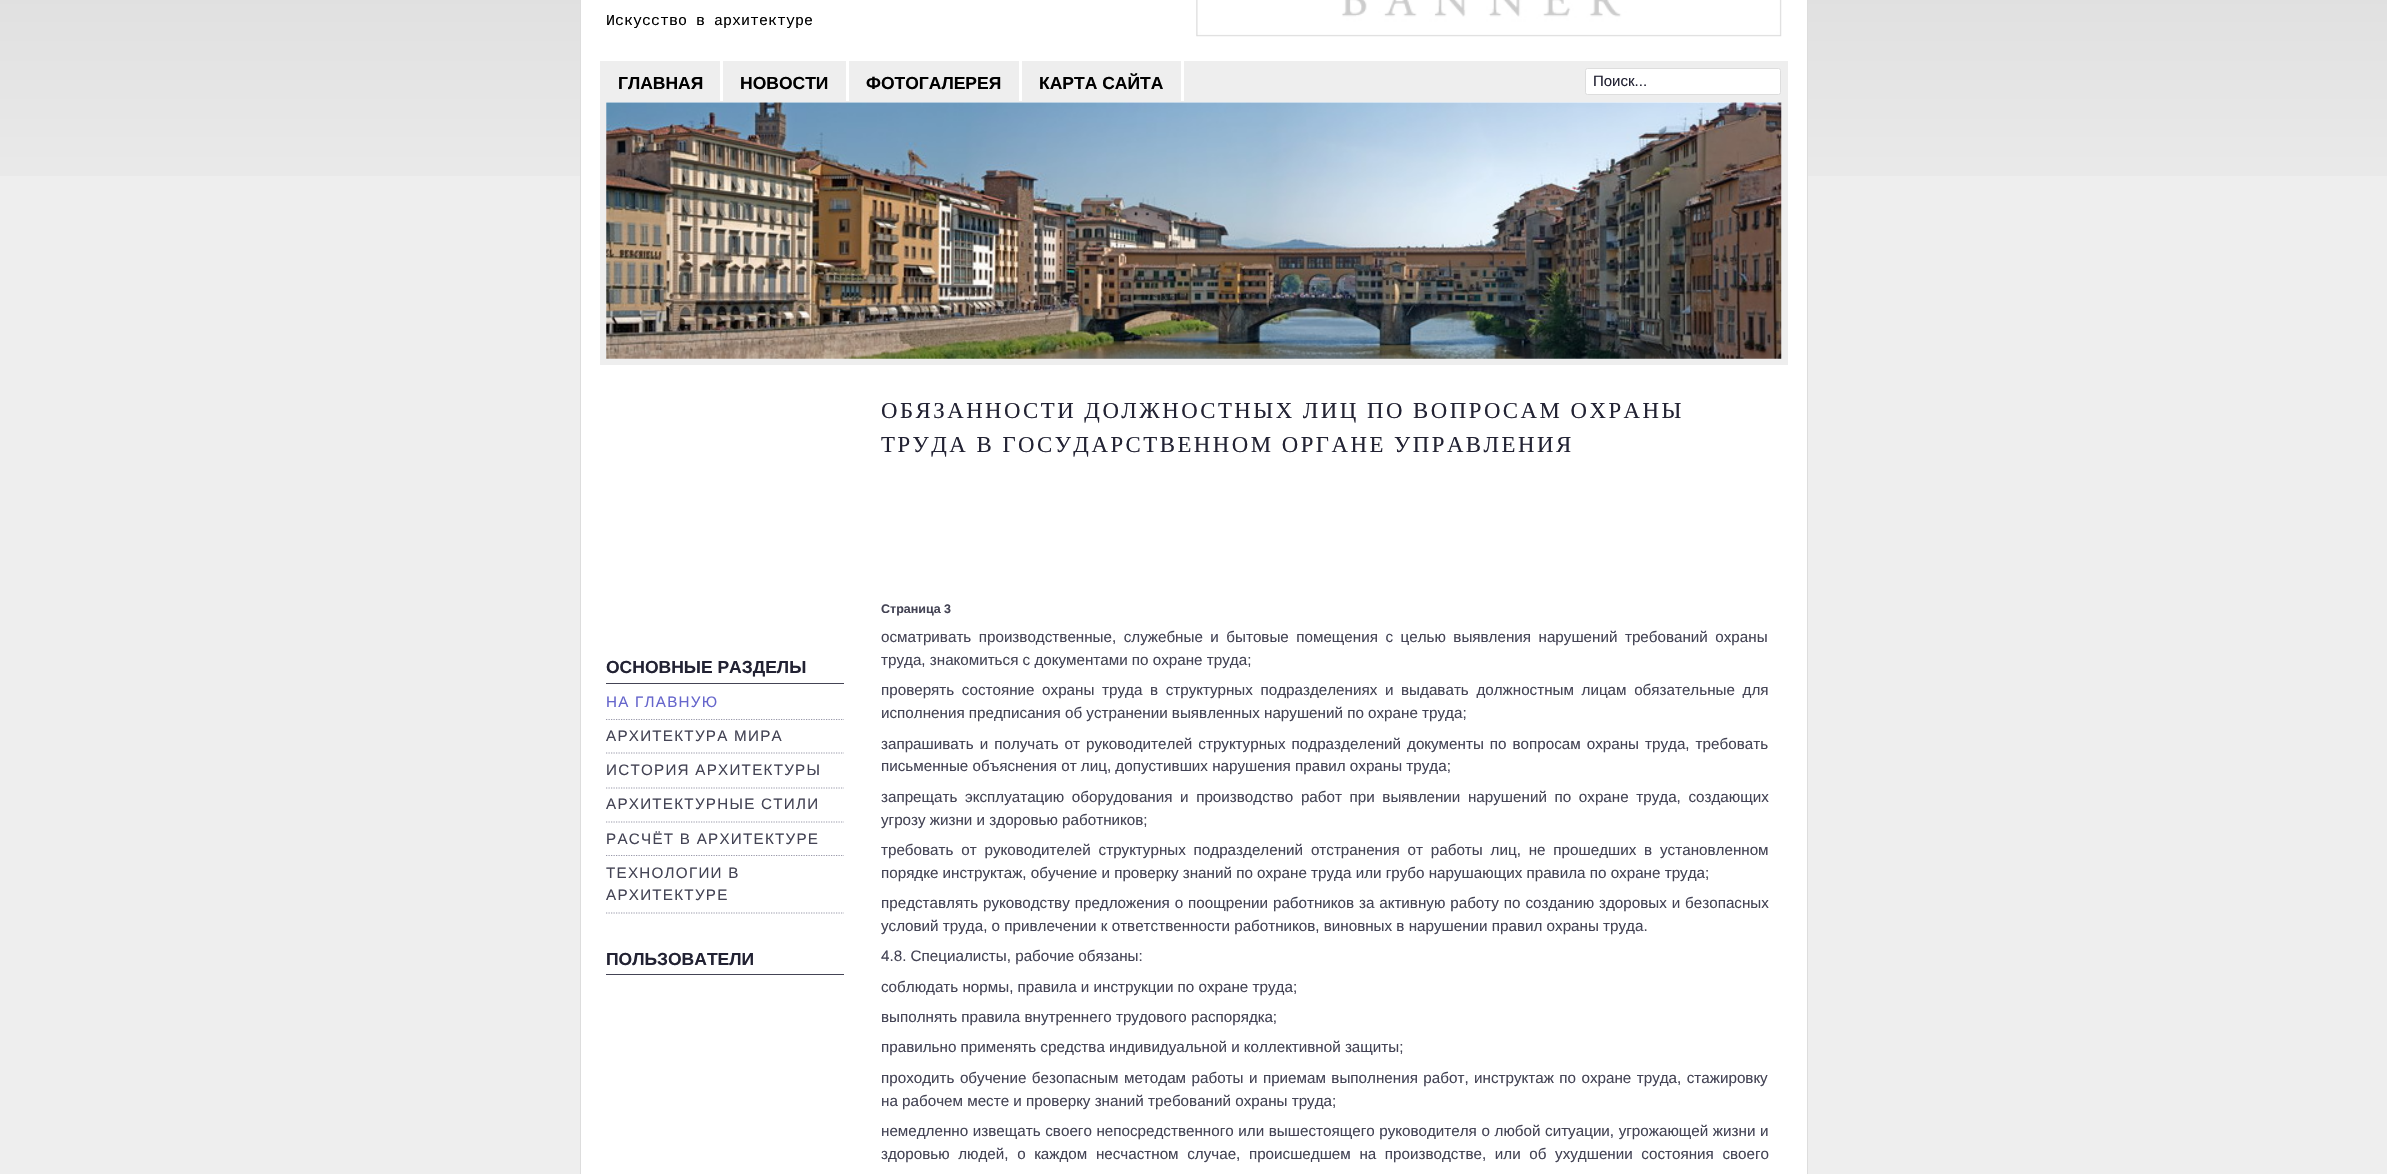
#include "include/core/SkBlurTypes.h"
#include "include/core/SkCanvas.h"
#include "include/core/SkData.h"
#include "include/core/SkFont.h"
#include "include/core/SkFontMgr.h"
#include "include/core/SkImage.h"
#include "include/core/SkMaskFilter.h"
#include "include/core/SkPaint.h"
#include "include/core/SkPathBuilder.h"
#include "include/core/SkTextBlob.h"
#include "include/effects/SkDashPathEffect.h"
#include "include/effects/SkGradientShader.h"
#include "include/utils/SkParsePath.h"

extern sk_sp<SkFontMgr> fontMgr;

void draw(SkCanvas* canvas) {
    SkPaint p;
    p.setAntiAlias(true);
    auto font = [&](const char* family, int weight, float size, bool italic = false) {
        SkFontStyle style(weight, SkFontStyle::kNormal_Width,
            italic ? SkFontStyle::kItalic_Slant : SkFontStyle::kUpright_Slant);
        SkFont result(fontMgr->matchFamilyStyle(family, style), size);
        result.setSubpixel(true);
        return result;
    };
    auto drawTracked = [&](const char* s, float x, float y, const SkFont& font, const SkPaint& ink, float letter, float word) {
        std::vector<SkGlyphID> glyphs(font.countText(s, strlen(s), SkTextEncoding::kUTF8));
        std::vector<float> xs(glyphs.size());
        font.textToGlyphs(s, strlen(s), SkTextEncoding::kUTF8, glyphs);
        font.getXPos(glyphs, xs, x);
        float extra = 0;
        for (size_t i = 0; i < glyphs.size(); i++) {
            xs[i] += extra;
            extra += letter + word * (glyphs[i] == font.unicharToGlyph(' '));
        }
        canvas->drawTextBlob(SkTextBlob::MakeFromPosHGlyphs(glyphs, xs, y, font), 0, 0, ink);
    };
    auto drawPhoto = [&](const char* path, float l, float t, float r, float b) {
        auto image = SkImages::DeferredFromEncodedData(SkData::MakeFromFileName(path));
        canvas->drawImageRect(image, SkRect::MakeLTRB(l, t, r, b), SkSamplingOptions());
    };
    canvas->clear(0xFFEEEEEE);
    drawPhoto("media/1.png", 0, 0, 2387, 176);
    p.setColor(0xFFFFFFFF);
    canvas->drawRect(SkRect::MakeLTRB(580.5f, -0.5f, 1807.5f, 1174.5f), p);
    p.setStyle(SkPaint::kStroke_Style);
    p.setStrokeWidth(1);
    p.setColor(0xFFDDDDDD);
    canvas->drawRect(SkRect::MakeLTRB(580.5f, -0.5f, 1807.5f, 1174.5f), p);
    auto font1 = font("Liberation Mono", 400, 15);
    p.setStyle(SkPaint::kFill_Style);
    p.setColor(0xFF000000);
    canvas->drawString("Искусство в архитектуре", 606, 25, font1, p);
    drawPhoto("media/2.png", 1196, 0, 1782, 37);
    {
        const struct { float l, t, r, b; SkColor color; } items[] = {
            {600, 61, 1788, 102, 0xFFEEEEEE},
            {1781, 101, 1788, 365, 0xFFEEEEEE},
            {600, 359, 1788, 365, 0xFFEEEEEE},
            {600, 101, 606, 365, 0xFFEEEEEE},
        };
        for (auto [l, t, r, b, color] : items) {
            p.setColor(color);
            canvas->drawRect(SkRect::MakeLTRB(l, t, r, b), p);
        }
    }
    drawPhoto("media/3.png", 606, 102, 1782, 359);
    p.setColor(0xFFFFFFFF);
    canvas->drawRect(SkRect::MakeLTRB(720, 61, 723, 101), p);
    auto font2 = font("Liberation Sans", 700, 17.5f);
    p.setColor(0xFF000000);
    canvas->drawString("ГЛАВНАЯ", 618, 89, font2, p);
    p.setColor(0xFFFFFFFF);
    canvas->drawRect(SkRect::MakeLTRB(846, 61, 849, 101), p);
    p.setColor(0xFF000000);
    canvas->drawString("НОВОСТИ", 740, 89, font2, p);
    p.setColor(0xFFFFFFFF);
    canvas->drawRect(SkRect::MakeLTRB(1019, 61, 1022, 101), p);
    p.setColor(0xFF000000);
    canvas->drawString("ФОТОГАЛЕРЕЯ", 866, 89, font2, p);
    p.setColor(0xFFFFFFFF);
    canvas->drawRect(SkRect::MakeLTRB(1181, 61, 1184, 101), p);
    p.setColor(0xFF000000);
    canvas->drawString("КАРТА САЙТА", 1039, 89, font2, p);
    p.setColor(0xFFFFFFFF);
    canvas->drawRoundRect(SkRect::MakeLTRB(1585.5f, 68.5f, 1780.5f, 94.5f), 2, 2, p);
    p.setStyle(SkPaint::kStroke_Style);
    p.setColor(0xFFDDDDDD);
    canvas->drawRoundRect(SkRect::MakeLTRB(1585.5f, 68.5f, 1780.5f, 94.5f), 2, 2, p);
    auto font3 = font("Liberation Sans", 400, 15);
    p.setStyle(SkPaint::kFill_Style);
    p.setColor(0xFF222233);
    canvas->drawString("Поиск...", 1593, 86, font3, p);
    p.setColor(0xFF444455);
    canvas->drawRect(SkRect::MakeLTRB(606, 683, 844, 684), p);
    p.setColor(0xFF222233);
    canvas->drawString("ОСНОВНЫЕ РАЗДЕЛЫ", 606, 673, font2, p);
    p.setStyle(SkPaint::kStroke_Style);
    p.setStrokeWidth(1.2f);
    p.setColor(0xFF9999AA);
    p.setPathEffect(SkDashPathEffect::Make({{1.25f, 1.25f}}, 0));
    canvas->drawPath(SkPathBuilder().moveTo(606, 719.5f).lineTo(844, 719.5f).detach(), p);
    p.setPathEffect(nullptr);
    auto font4 = font("Liberation Sans", 400, 15.2f);
    p.setStyle(SkPaint::kFill_Style);
    p.setColor(0xFF6666CC);
    drawTracked("НА ГЛАВНУЮ", 606, 707, font4, p, 1.25f, 0);
    p.setStyle(SkPaint::kStroke_Style);
    p.setColor(0xFF9999AA);
    p.setPathEffect(SkDashPathEffect::Make({{1.25f, 1.25f}}, 0));
    canvas->drawPath(SkPathBuilder().moveTo(606, 753).lineTo(844, 753).detach(), p);
    p.setPathEffect(nullptr);
    p.setStyle(SkPaint::kFill_Style);
    p.setColor(0xFF444455);
    drawTracked("AРХИТЕКТУРА МИРА", 606, 741, font4, p, 1.25f, 0);
    p.setStyle(SkPaint::kStroke_Style);
    p.setColor(0xFF9999AA);
    p.setPathEffect(SkDashPathEffect::Make({{1.25f, 1.25f}}, 0));
    canvas->drawPath(SkPathBuilder().moveTo(606, 788).lineTo(844, 788).detach(), p);
    p.setPathEffect(nullptr);
    p.setStyle(SkPaint::kFill_Style);
    p.setColor(0xFF444455);
    drawTracked("ИСТОРИЯ АРХИТЕКТУРЫ", 606, 775, font4, p, 1.25f, 0);
    p.setStyle(SkPaint::kStroke_Style);
    p.setColor(0xFF9999AA);
    p.setPathEffect(SkDashPathEffect::Make({{1.25f, 1.25f}}, 0));
    canvas->drawPath(SkPathBuilder().moveTo(606, 822).lineTo(844, 822).detach(), p);
    p.setPathEffect(nullptr);
    p.setStyle(SkPaint::kFill_Style);
    p.setColor(0xFF444455);
    drawTracked("AРХИТЕКТУРНЫЕ СТИЛИ", 606, 809, font4, p, 1.25f, 0);
    p.setStyle(SkPaint::kStroke_Style);
    p.setColor(0xFF9999AA);
    p.setPathEffect(SkDashPathEffect::Make({{1.25f, 1.25f}}, 0));
    canvas->drawPath(SkPathBuilder().moveTo(606, 855.5f).lineTo(844, 855.5f).detach(), p);
    p.setPathEffect(nullptr);
    p.setStyle(SkPaint::kFill_Style);
    p.setColor(0xFF444455);
    drawTracked("РАСЧЁТ В АРХИТЕКТУРЕ", 606, 844, font4, p, 1.25f, 0);
    p.setStyle(SkPaint::kStroke_Style);
    p.setColor(0xFF9999AA);
    p.setPathEffect(SkDashPathEffect::Make({{1.25f, 1.25f}}, 0));
    canvas->drawPath(SkPathBuilder().moveTo(606, 913).lineTo(844, 913).detach(), p);
    p.setPathEffect(nullptr);
    p.setStyle(SkPaint::kFill_Style);
    p.setColor(0xFF444455);
    drawTracked("ТЕХНОЛОГИИ В", 606, 878, font4, p, 1.25f, 0);
    drawTracked("АРХИТЕКТУРЕ", 606, 900, font4, p, 1.25f, 0);
    canvas->drawRect(SkRect::MakeLTRB(606, 974, 844, 975), p);
    p.setColor(0xFF222233);
    canvas->drawString("ПОЛЬЗОВАТЕЛИ", 606, 965, font2, p);
    auto font5 = font("Liberation Serif", 400, 22.8f);
    drawTracked("ОБЯЗАННОСТИ ДОЛЖНОСТНЫХ ЛИЦ ПО ВОПРОСАМ ОХРАНЫ", 881, 418, font5, p, 2.5f, 0);
    drawTracked("ТРУДА В ГОСУДАРСТВЕННОМ ОРГАНЕ УПРАВЛЕНИЯ", 881, 452, font5, p, 2.5f, 0);
    auto font6 = font("Liberation Sans", 700, 12.5f);
    p.setColor(0xFF444455);
    canvas->drawString("Страница 3", 881, 613, font6, p);
    drawTracked("осматривать производственные, служебные и бытовые помещения с целью выявления нарушений требований охраны", 881, 642, font4, p, 0, 3.25f);
    canvas->drawString("труда, знакомиться с документами по охране труда;", 881, 665, font4, p);
    drawTracked("проверять состояние охраны труда в структурных подразделениях и выдавать должностным лицам обязательные для", 881, 695, font4, p, 0, 3.4f);
    canvas->drawString("исполнения предписания об устранении выявленных нарушений по охране труда;", 881, 718, font4, p);
    drawTracked("запрашивать и получать от руководителей структурных подразделений документы по вопросам охраны труда, требовать", 881, 749, font4, p, 0, 1.8f);
    canvas->drawString("письменные объяснения от лиц, допустивших нарушения правил охраны труда;", 881, 771, font4, p);
    drawTracked("запрещать эксплуатацию оборудования и производство работ при выявлении нарушений по охране труда, создающих", 881, 802, font4, p, 0, 3.4f);
    canvas->drawString("угрозу жизни и здоровью работников;", 881, 825, font4, p);
    drawTracked("требовать от руководителей структурных подразделений отстранения от работы лиц, не прошедших в установленном", 881, 855, font4, p, 0, 3.6f);
    canvas->drawString("порядке инструктаж, обучение и проверку знаний по охране труда или грубо нарушающих правила по охране труда;", 881, 878, font4, p);
    drawTracked("представлять руководству предложения о поощрении работников за активную работу по созданию здоровых и безопасных", 881, 908, font4, p, 0, 0.7f);
    {
        const struct { const char* s; float x, y; } items[] = {
            {"условий труда, о привлечении к ответственности работников, виновных в нарушении правил охраны труда.", 881, 931},
            {"4.8. Специалисты, рабочие обязаны:", 881, 961},
            {"соблюдать нормы, правила и инструкции по охране труда;", 881, 992},
            {"выполнять правила внутреннего трудового распорядка;", 881, 1022},
            {"правильно применять средства индивидуальной и коллективной защиты;", 881, 1052},
        };
        for (auto [s, x, y] : items) {
            canvas->drawString(s, x, y, font4, p);
        }
    }
    drawTracked("проходить обучение безопасным методам работы и приемам выполнения работ, инструктаж по охране труда, стажировку", 881, 1083, font4, p, 0, 1.25f);
    canvas->drawString("на рабочем месте и проверку знаний требований охраны труда;", 881, 1106, font4, p);
    drawTracked("немедленно извещать своего непосредственного или вышестоящего руководителя о любой ситуации, угрожающей жизни и", 881, 1136, font4, p, 0, 0.4f);
    drawTracked("здоровью людей, о каждом несчастном случае, происшедшем на производстве, или об ухудшении состояния своего", 881, 1159, font4, p, 0, 4.4f);
}
